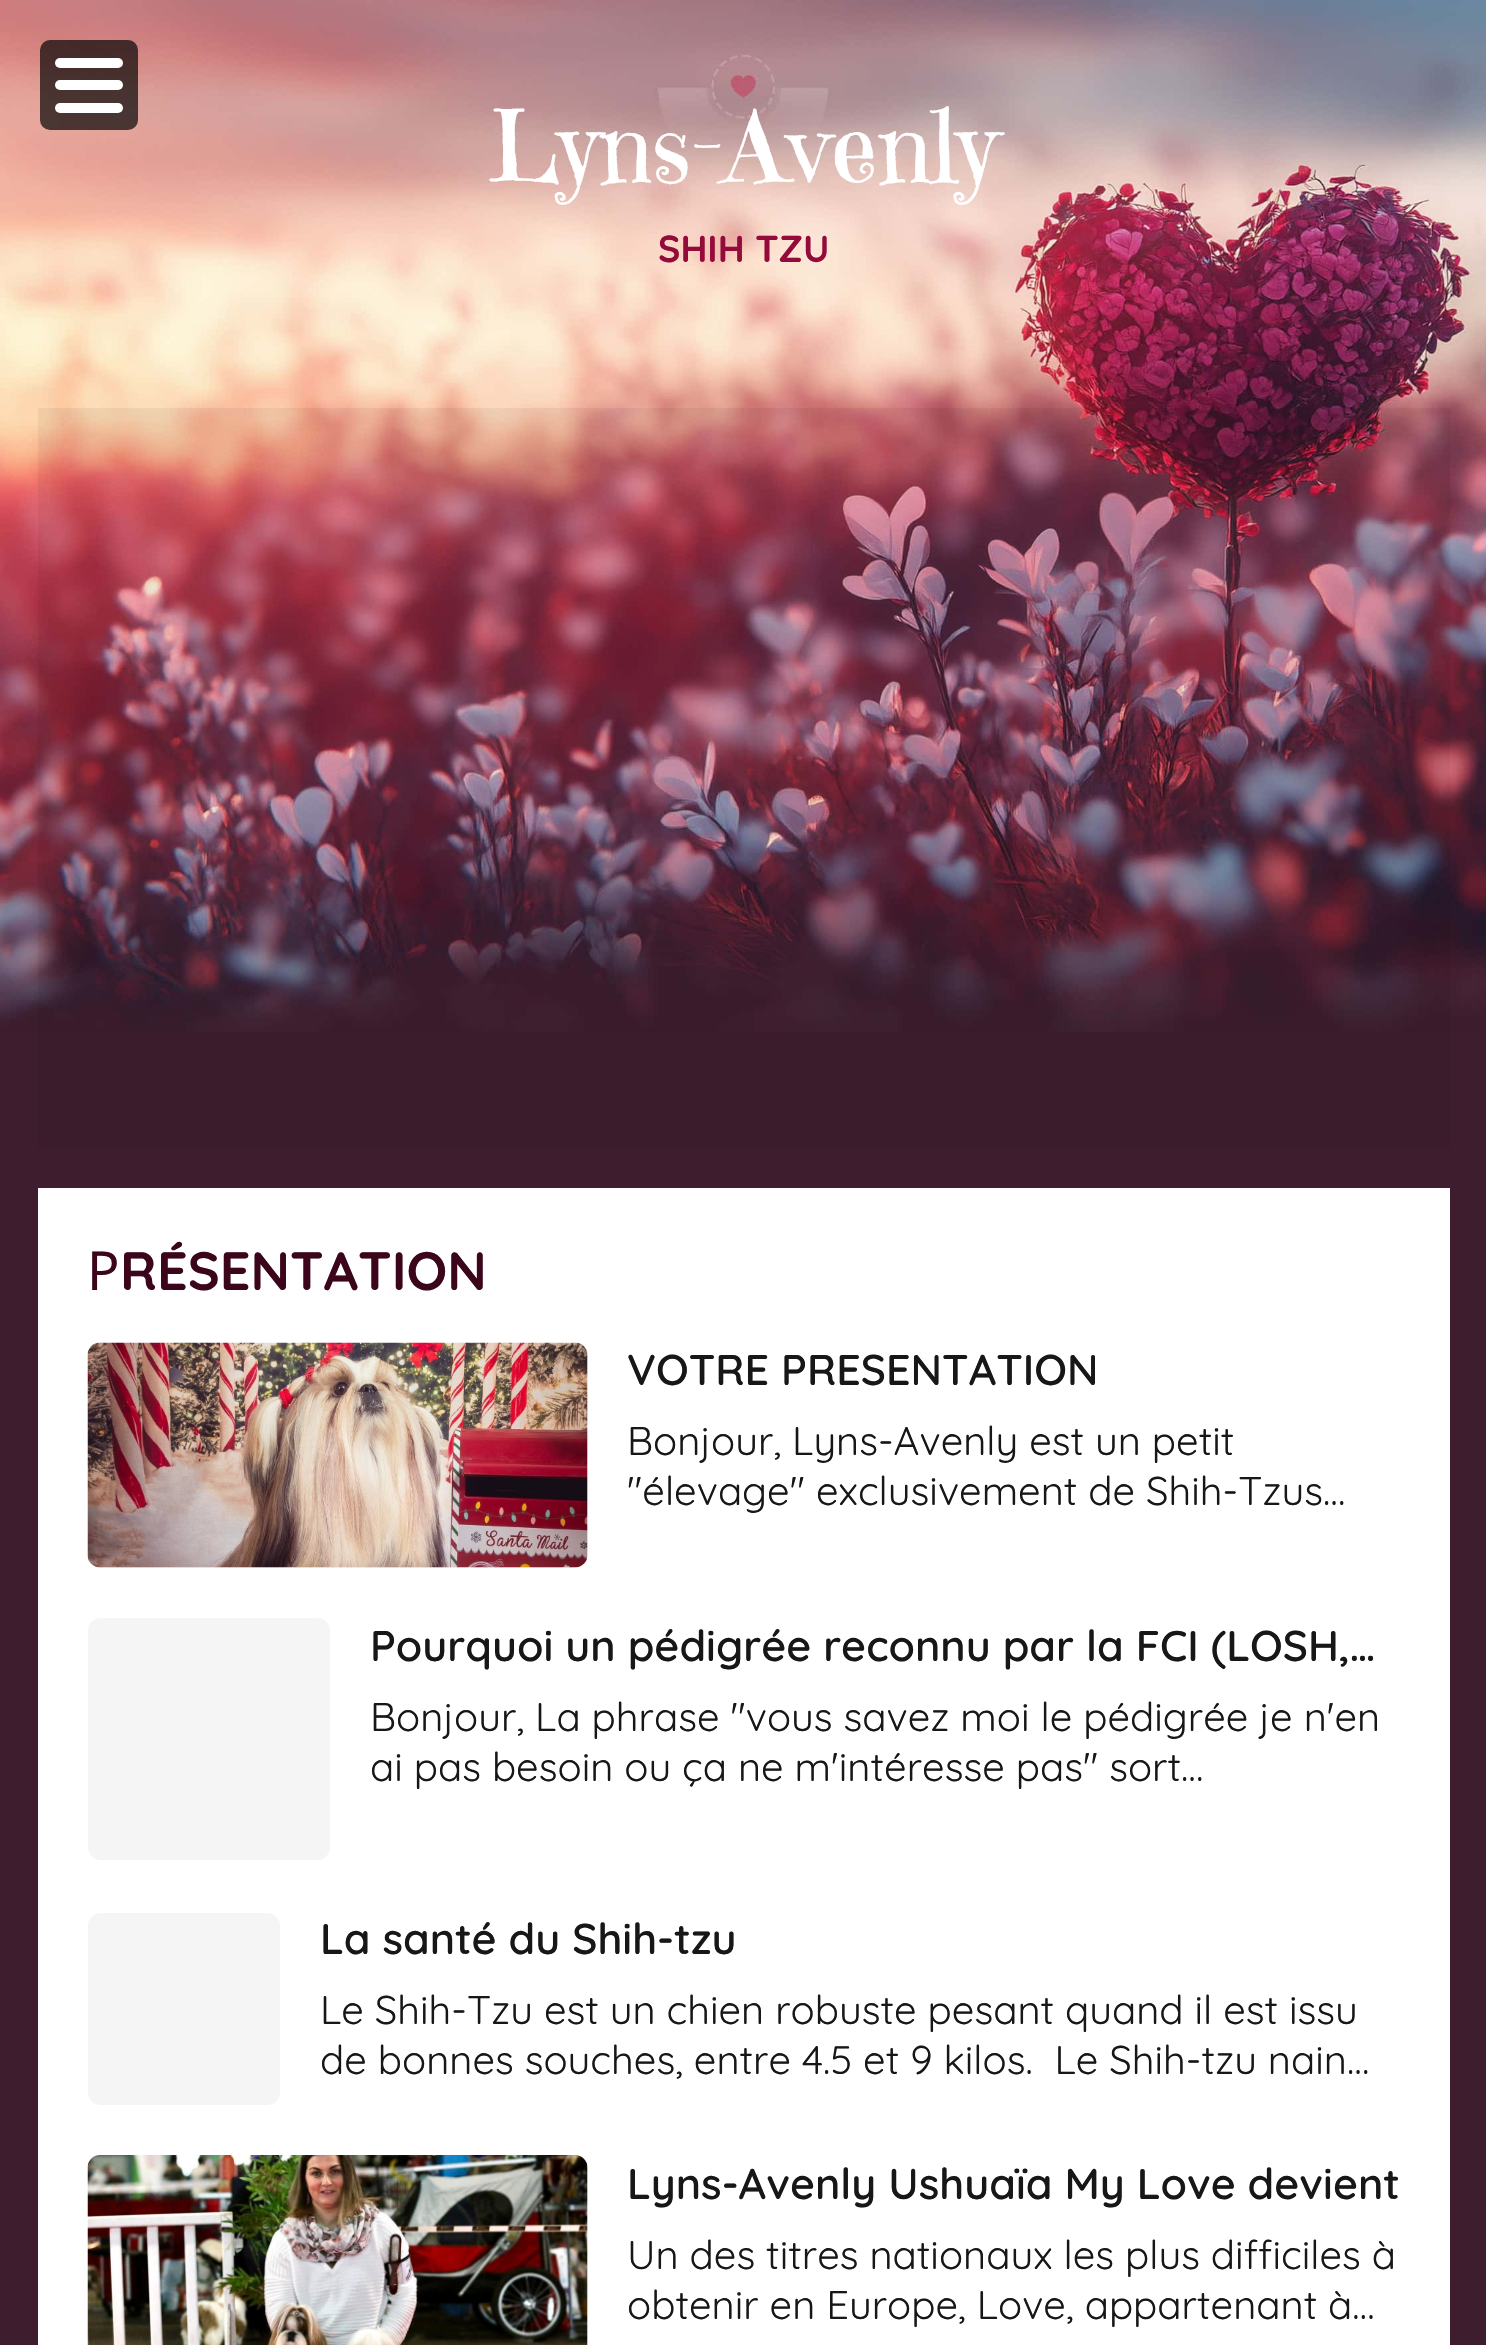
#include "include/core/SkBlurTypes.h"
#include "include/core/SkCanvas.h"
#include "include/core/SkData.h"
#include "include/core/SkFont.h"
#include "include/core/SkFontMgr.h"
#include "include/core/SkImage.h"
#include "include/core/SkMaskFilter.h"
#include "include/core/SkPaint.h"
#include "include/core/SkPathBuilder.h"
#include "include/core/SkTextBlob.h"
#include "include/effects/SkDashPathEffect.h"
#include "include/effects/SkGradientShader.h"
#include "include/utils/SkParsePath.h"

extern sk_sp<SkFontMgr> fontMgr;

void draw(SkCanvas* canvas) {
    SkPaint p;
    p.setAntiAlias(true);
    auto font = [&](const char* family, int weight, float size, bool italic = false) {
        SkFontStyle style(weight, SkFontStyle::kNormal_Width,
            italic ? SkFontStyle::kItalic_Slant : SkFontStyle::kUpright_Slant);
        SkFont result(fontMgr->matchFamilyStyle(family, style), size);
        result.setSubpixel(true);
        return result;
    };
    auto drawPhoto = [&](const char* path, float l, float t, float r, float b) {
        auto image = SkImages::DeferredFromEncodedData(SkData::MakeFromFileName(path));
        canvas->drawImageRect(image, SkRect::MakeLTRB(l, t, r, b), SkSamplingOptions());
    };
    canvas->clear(0xFF3E1D2E);
    drawPhoto("media/1.png", 0, 0, 1486, 1032);
    p.setColor(0xAD000000);
    canvas->drawRoundRect(SkRect::MakeLTRB(40, 40, 138, 130), 10, 10, p);
    p.setColor(0xFFFFFFFF);
    canvas->drawRoundRect(SkRect::MakeLTRB(55, 58, 123, 68), 5, 5, p);
    canvas->drawRoundRect(SkRect::MakeLTRB(55, 80, 123, 90), 5, 5, p);
    canvas->drawRoundRect(SkRect::MakeLTRB(55, 103, 123, 113), 5, 5, p);
    auto font1 = font("Emilys Candy", 400, 100);
    canvas->drawString("Lyns-Avenly", 489, 182, font1, p);
    auto font2 = font("Quicksand", 700, 37.5f);
    p.setColor(0xFF940A3A);
    canvas->drawString("SHIH TZU", 658, 262, font2, p);
    p.setColor(0x0D000000);
    canvas->drawRect(SkRect::MakeLTRB(38, 408, 1450, 1148), p);
    p.setColor(0xFFFFFFFF);
    canvas->drawRect(SkRect::MakeLTRB(38, 1188, 1450, 2345), p);
    auto font3 = font("Noto Sans", 400, 53.75f);
    p.setColor(0xFF3B061C);
    canvas->drawString("P", 87, 1290, font3, p);
    auto font4 = font("Quicksand", 700, 53.75f);
    canvas->drawString("RÉSENTATION", 120, 1290, font4, p);
    p.setColor(0xFFF5F5F5);
    canvas->drawRoundRect(SkRect::MakeLTRB(88, 1343, 588, 1568), 13, 13, p);
    drawPhoto("media/2.png", 87, 1342, 588, 1568);
    auto font5 = font("Quicksand", 600, 43);
    p.setColor(0xFF171717);
    canvas->drawString("VOTRE PRESENTATION", 627, 1385, font5, p);
    auto font6 = font("Quicksand", 400, 40);
    canvas->drawString("Bonjour, Lyns-Avenly est un petit", 627, 1455, font6, p);
    canvas->drawString("\"élevage\" exclusivement de Shih-Tzus…", 627, 1505, font6, p);
    p.setColor(0xFFF5F5F5);
    canvas->drawRoundRect(SkRect::MakeLTRB(88, 1618, 330, 1860), 13, 13, p);
    p.setColor(0xFF171717);
    canvas->drawString("Pourquoi un pédigrée reconnu par la FCI (LOSH,…", 370, 1661, font5, p);
    canvas->drawString("Bonjour, La phrase \"vous savez moi le pédigrée je n'en", 370, 1731, font6, p);
    canvas->drawString("ai pas besoin ou ça ne m'intéresse pas\" sort…", 370, 1781, font6, p);
    p.setColor(0xFFF5F5F5);
    canvas->drawRoundRect(SkRect::MakeLTRB(88, 1913, 280, 2105), 13, 13, p);
    p.setColor(0xFF171717);
    canvas->drawString("La santé du Shih-tzu", 320, 1954, font5, p);
    canvas->drawString("Le Shih-Tzu est un chien robuste pesant quand il est issu", 320, 2024, font6, p);
    canvas->drawString("de bonnes souches, entre 4.5 et 9 kilos.  Le Shih-tzu nain…", 320, 2074, font6, p);
    p.setColor(0xFFF5F5F5);
    canvas->drawRoundRect(SkRect::MakeLTRB(88, 2155, 588, 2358), 13, 13, p);
    drawPhoto("media/3.png", 87, 2155, 588, 2345);
    p.setColor(0xFF171717);
    canvas->drawString("Lyns-Avenly Ushuaïa My Love devient", 627, 2199, font5, p);
    canvas->drawString("Un des titres nationaux les plus difficiles à", 627, 2269, font6, p);
    canvas->drawString("obtenir en Europe, Love, appartenant à…", 627, 2319, font6, p);
}
